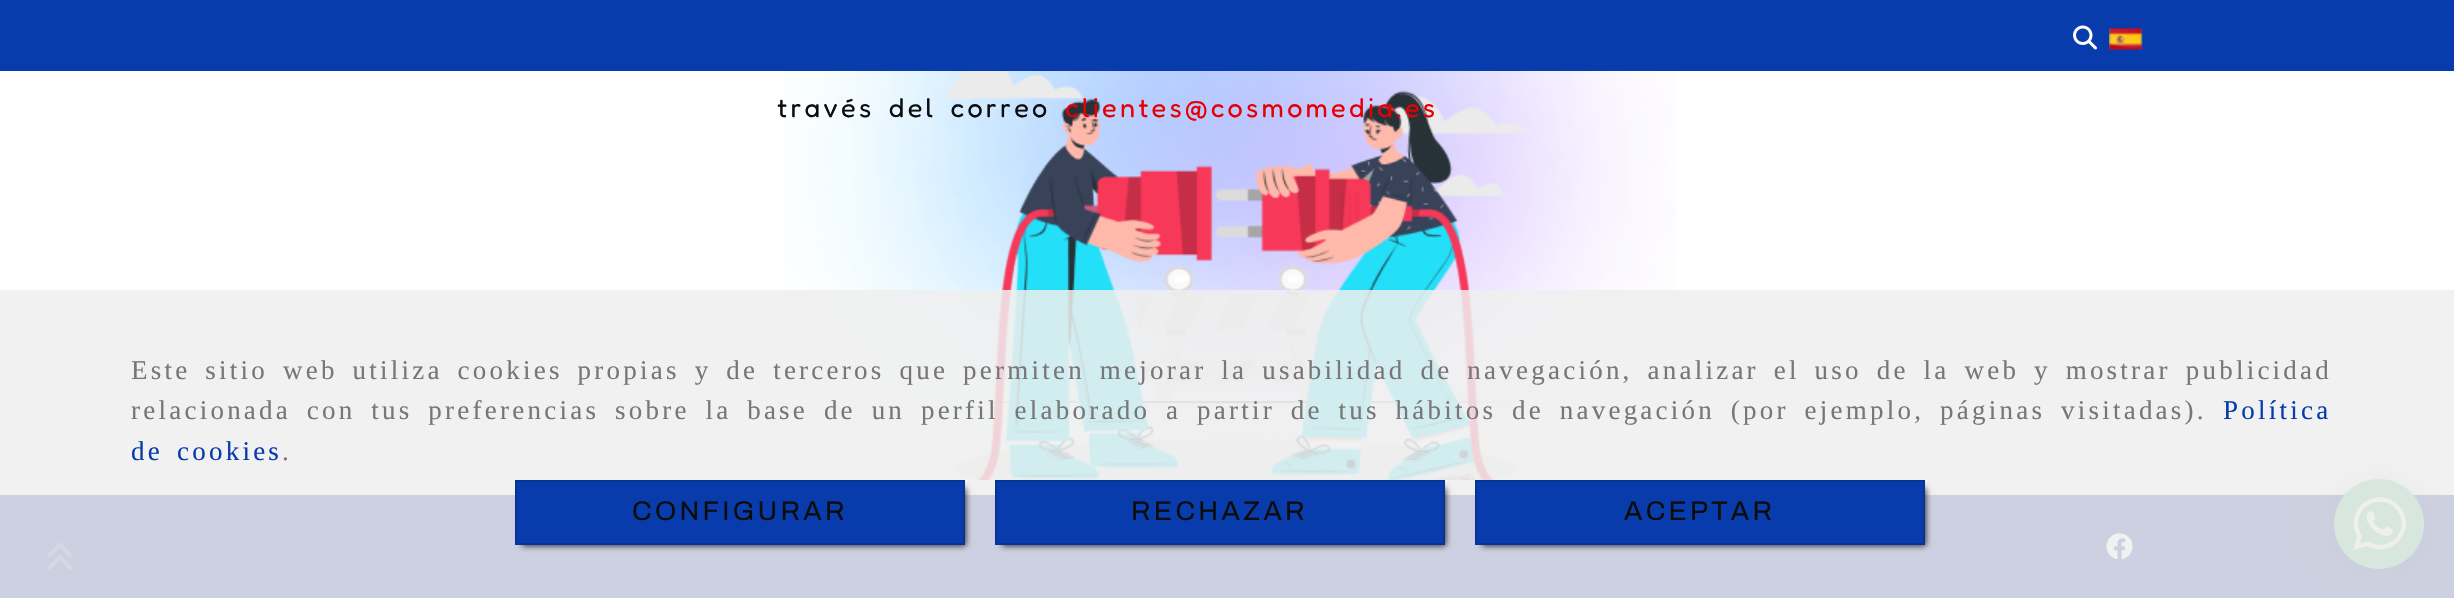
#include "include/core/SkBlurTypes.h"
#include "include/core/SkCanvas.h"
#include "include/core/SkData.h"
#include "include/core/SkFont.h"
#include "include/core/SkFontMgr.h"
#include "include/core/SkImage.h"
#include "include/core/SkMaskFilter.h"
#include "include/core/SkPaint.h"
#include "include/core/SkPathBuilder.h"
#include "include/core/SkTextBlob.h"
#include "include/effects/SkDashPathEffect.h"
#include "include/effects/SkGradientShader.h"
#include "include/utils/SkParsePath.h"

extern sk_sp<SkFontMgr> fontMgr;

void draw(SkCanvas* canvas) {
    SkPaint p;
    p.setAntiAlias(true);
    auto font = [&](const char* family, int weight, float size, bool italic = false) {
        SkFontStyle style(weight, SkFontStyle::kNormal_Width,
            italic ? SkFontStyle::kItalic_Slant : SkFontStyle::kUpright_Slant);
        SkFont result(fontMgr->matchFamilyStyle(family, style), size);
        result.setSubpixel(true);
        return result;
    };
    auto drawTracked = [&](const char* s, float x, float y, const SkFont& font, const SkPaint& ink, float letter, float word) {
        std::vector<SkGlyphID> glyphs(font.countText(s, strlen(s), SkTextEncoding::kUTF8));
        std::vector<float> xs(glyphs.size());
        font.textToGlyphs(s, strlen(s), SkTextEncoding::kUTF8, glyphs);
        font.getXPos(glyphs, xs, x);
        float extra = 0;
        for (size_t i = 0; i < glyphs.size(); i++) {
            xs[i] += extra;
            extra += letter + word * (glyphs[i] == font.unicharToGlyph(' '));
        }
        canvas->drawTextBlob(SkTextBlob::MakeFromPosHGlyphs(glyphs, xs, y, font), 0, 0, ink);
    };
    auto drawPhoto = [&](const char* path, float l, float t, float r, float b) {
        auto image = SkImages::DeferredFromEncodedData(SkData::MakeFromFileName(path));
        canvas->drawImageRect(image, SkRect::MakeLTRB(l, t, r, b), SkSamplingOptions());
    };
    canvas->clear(0xFFFFFFFF);
    p.setColor(0xFF083BAB);
    canvas->drawRect(SkRect::MakeLTRB(0, 0, 2454, 71), p);
    drawPhoto("media/1.png", 2073, 25, 2097, 50);
    drawPhoto("media/2.png", 2109, 28, 2143, 50);
    drawPhoto("media/3.png", 784, 71, 1676, 480);
    auto font1 = font("Fredoka", 400, 27);
    p.setColor(0xFF0C0C0C);
    drawTracked("través del correo", 777, 117, font1, p, 3.24f, 4);
    p.setColor(0xFFE80000);
    drawTracked("clientes@cosmomedia.es", 1065, 117, font1, p, 3.24f, 0);
    p.setColor(0xFF021E88);
    canvas->drawRect(SkRect::MakeLTRB(0, 495, 2454, 598), p);
    drawPhoto("media/4.png", 2106, 533, 2133, 560);
    p.setColor(0x33000000);
    p.setMaskFilter(SkMaskFilter::MakeBlur(kNormal_SkBlurStyle, 24));
    canvas->drawRoundRect(SkRect::MakeLTRB(2334, 482, 2424, 572), 45, 45, p);
    p.setMaskFilter(nullptr);
    p.setColor(0x1A000000);
    p.setMaskFilter(SkMaskFilter::MakeBlur(kNormal_SkBlurStyle, 4.5f));
    canvas->drawRoundRect(SkRect::MakeLTRB(2334, 480, 2424, 570), 45, 45, p);
    p.setMaskFilter(nullptr);
    p.setColor(0xFF4EB980);
    canvas->drawCircle(2379, 524, 45, p);
    drawPhoto("media/5.png", 2353, 497, 2406, 550);
    p.setColor(0xFF03248F);
    canvas->drawPath(SkPathBuilder().moveTo(61, 590).cubicTo(93, 590, 107, 550, 81, 530).cubicTo(75, 525, 68, 523, 61, 523).cubicTo(53, 523, 46, 525, 40, 530).cubicTo(15, 550, 29, 590, 61, 590).close().detach(), p);
    drawPhoto("media/6.png", 47, 542, 73, 570);
    p.setColor(0xD9EEEEEE);
    canvas->drawRect(SkRect::MakeLTRB(0, 290, 2454, 598), p);
    auto font2 = font("Liberation Serif", 400, 27);
    p.setColor(0xFF777777);
    drawTracked("Este sitio web utiliza cookies propias y de terceros que permiten mejorar la usabilidad de navegación, analizar el uso de la web y mostrar publicidad", 131, 379, font2, p, 3.24f, 4.9f);
    drawTracked("relacionada con tus preferencias sobre la base de un perfil elaborado a partir de tus hábitos de navegación (por ejemplo, páginas visitadas).", 131, 419, font2, p, 3.24f, 5.8f);
    p.setColor(0xFF083BAB);
    drawTracked("Política", 2223, 419, font2, p, 3.24f, 0);
    drawTracked("de cookies", 131, 460, font2, p, 3.24f, 4);
    p.setColor(0xFF777777);
    drawTracked(".", 282, 460, font2, p, 3.24f, 0);
    p.setColor(0xBF000000);
    p.setMaskFilter(SkMaskFilter::MakeBlur(kNormal_SkBlurStyle, 3));
    canvas->drawRect(SkRect::MakeLTRB(522, 488, 966, 546), p);
    p.setMaskFilter(nullptr);
    p.setColor(0xFF083BAB);
    canvas->drawRect(SkRect::MakeLTRB(516, 481, 964, 544), p);
    p.setStyle(SkPaint::kStroke_Style);
    p.setStrokeWidth(2);
    p.setColor(0xFF073393);
    canvas->drawRect(SkRect::MakeLTRB(516, 481, 964, 544), p);
    auto font3 = font("Archivo", 400, 27);
    p.setStyle(SkPaint::kFill_Style);
    p.setColor(0xFF0C0C0C);
    drawTracked("CONFIGURAR", 632, 520, font3, p, 3.24f, 0);
    p.setColor(0xBF000000);
    p.setMaskFilter(SkMaskFilter::MakeBlur(kNormal_SkBlurStyle, 3));
    canvas->drawRect(SkRect::MakeLTRB(1002, 488, 1446, 546), p);
    p.setMaskFilter(nullptr);
    p.setColor(0xFF083BAB);
    canvas->drawRect(SkRect::MakeLTRB(996, 481, 1444, 544), p);
    p.setStyle(SkPaint::kStroke_Style);
    p.setColor(0xFF073393);
    canvas->drawRect(SkRect::MakeLTRB(996, 481, 1444, 544), p);
    p.setStyle(SkPaint::kFill_Style);
    p.setColor(0xFF0C0C0C);
    drawTracked("RECHAZAR", 1131, 520, font3, p, 3.24f, 0);
    p.setColor(0xBF000000);
    p.setMaskFilter(SkMaskFilter::MakeBlur(kNormal_SkBlurStyle, 3));
    canvas->drawRect(SkRect::MakeLTRB(1482, 488, 1926, 546), p);
    p.setMaskFilter(nullptr);
    p.setColor(0xFF083BAB);
    canvas->drawRect(SkRect::MakeLTRB(1476, 481, 1924, 544), p);
    p.setStyle(SkPaint::kStroke_Style);
    p.setColor(0xFF073393);
    canvas->drawRect(SkRect::MakeLTRB(1476, 481, 1924, 544), p);
    p.setStyle(SkPaint::kFill_Style);
    p.setColor(0xFF0C0C0C);
    drawTracked("ACEPTAR", 1624, 520, font3, p, 3.24f, 0);
}
